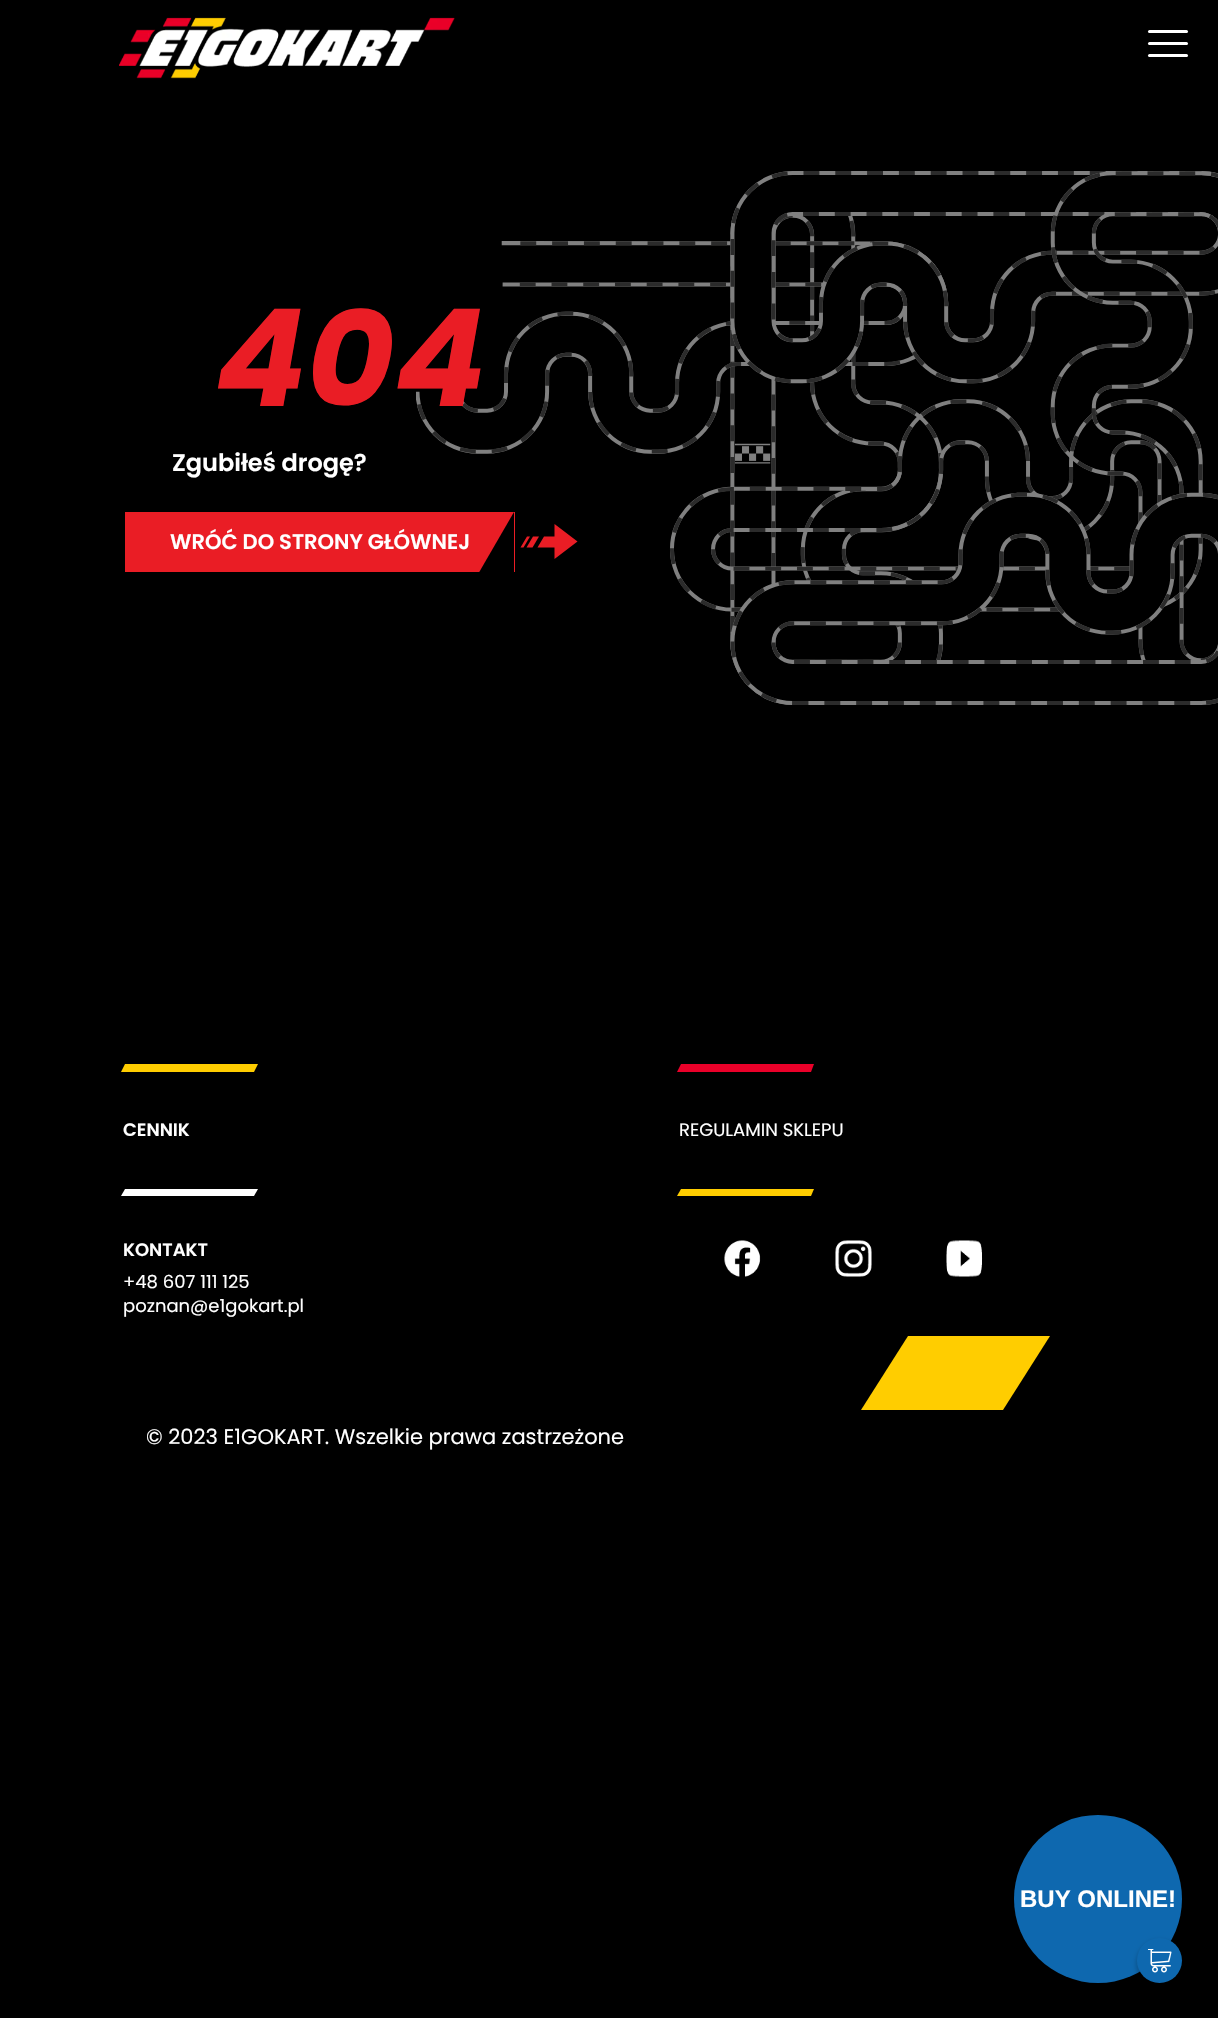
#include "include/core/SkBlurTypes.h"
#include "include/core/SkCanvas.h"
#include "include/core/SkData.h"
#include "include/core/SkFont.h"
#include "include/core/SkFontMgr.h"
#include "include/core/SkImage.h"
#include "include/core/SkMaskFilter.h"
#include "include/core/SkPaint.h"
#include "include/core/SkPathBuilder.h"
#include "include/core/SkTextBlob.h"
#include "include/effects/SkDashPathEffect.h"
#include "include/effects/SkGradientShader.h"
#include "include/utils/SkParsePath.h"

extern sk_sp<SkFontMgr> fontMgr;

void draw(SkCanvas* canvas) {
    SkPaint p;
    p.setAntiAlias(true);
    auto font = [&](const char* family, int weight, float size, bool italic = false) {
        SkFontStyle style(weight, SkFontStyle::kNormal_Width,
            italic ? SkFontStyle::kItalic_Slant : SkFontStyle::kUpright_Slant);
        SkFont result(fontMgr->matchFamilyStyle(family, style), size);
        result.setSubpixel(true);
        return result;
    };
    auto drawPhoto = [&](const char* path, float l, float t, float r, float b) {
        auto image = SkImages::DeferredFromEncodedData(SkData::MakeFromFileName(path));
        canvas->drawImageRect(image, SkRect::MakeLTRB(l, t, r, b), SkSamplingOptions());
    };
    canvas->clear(0xFF000000);
    drawPhoto("media/1.png", 119, 17, 455, 79);
    p.setColor(0xFFFFFFFF);
    canvas->drawRoundRect(SkRect::MakeLTRB(1148, 30, 1188, 33), 1.5f, 1.5f, p);
    canvas->drawRoundRect(SkRect::MakeLTRB(1148, 42, 1188, 45), 1.5f, 1.5f, p);
    canvas->drawRoundRect(SkRect::MakeLTRB(1148, 54, 1188, 57), 1.5f, 1.5f, p);
    drawPhoto("media/2.png", 416, 171, 1218, 705);
    auto font1 = font("Poppins", 700, 135, true);
    p.setColor(0xFFEA1D25);
    canvas->drawString("404", 215, 406, font1, p);
    auto font2 = font("Poppins", 600, 24);
    p.setColor(0xFFFFFFFF);
    canvas->drawString("Zgubiłeś drogę?", 172, 471, font2, p);
    p.setColor(0xFFEA1D25);
    canvas->drawRect(SkRect::MakeLTRB(125, 512, 515, 572), p);
    auto font3 = font("Poppins", 600, 21);
    p.setColor(0xFFFFFFFF);
    canvas->drawString("WRÓĆ DO STRONY GŁÓWNEJ", 170, 549, font3, p);
    canvas->save();
    canvas->clipRect(SkRect::MakeLTRB(125, 512, 590, 572));
    p.setColor(0xFF000000);
    canvas->drawPath(SkPathBuilder().moveTo(514, 512).lineTo(514, 588).lineTo(470, 588).close().detach(), p);
    canvas->restore();
    p.setColor(0xFFEA1D25);
    canvas->drawPath(SkPathBuilder().moveTo(554.5f, 524).lineTo(554.5f, 536.5f).lineTo(544, 536.5f).lineTo(537.5f, 547.5f).lineTo(554.5f, 547.5f).lineTo(554.5f, 559).lineTo(577.5f, 541.5f).close().moveTo(527, 536.5f).lineTo(520.5f, 547.5f).lineTo(523.5f, 547.5f).lineTo(530, 536.5f).close().detach(), p);
    canvas->drawPath(SkPathBuilder().moveTo(533, 536.5f).lineTo(526.5f, 547.5f).lineTo(532.5f, 547.5f).lineTo(539, 536.5f).close().detach(), p);
    p.setColor(0xFFFFCD00);
    canvas->drawPath(SkPathBuilder().moveTo(125, 1064).lineTo(258, 1064).lineTo(254, 1072).lineTo(121, 1072).close().detach(), p);
    auto font4 = font("Poppins", 600, 18);
    p.setColor(0xFFFFFFFF);
    canvas->drawString("CENNIK", 123, 1136, font4, p);
    p.setColor(0xFFEA0029);
    canvas->drawPath(SkPathBuilder().moveTo(681, 1064).lineTo(814, 1064).lineTo(811, 1072).lineTo(677, 1072).close().detach(), p);
    auto font5 = font("Poppins", 400, 18);
    p.setColor(0xFFFFFFFF);
    canvas->drawString("REGULAMIN SKLEPU", 679, 1136, font5, p);
    canvas->drawPath(SkPathBuilder().moveTo(125, 1189).lineTo(258, 1189).lineTo(254, 1196).lineTo(121, 1196).close().detach(), p);
    canvas->drawString("KONTAKT", 123, 1256, font4, p);
    canvas->drawString("+48 607 111 125", 123, 1288, font5, p);
    canvas->drawString("poznan@e1gokart.pl", 123, 1312, font5, p);
    p.setColor(0xFFFFCD00);
    canvas->drawPath(SkPathBuilder().moveTo(681, 1189).lineTo(814, 1189).lineTo(811, 1196).lineTo(677, 1196).close().detach(), p);
    drawPhoto("media/3.png", 724, 1240, 761, 1277);
    drawPhoto("media/4.png", 835, 1240, 872, 1277);
    drawPhoto("media/5.png", 946, 1240, 983, 1277);
    canvas->drawPath(SkPathBuilder().moveTo(908, 1336).lineTo(1050, 1336).lineTo(1003, 1410).lineTo(861, 1410).close().detach(), p);
    auto font6 = font("Poppins", 400, 21);
    p.setColor(0xFFFFFFFF);
    canvas->drawString("© 2023 E1GOKART. Wszelkie prawa zastrzeżone", 146, 1444, font6, p);
    p.setColor(0xFF0E68AF);
    canvas->drawCircle(1098, 1899, 84, p);
    auto font7 = font("Liberation Sans", 700, 24);
    p.setColor(0xFFFFFFFF);
    canvas->drawString("BUY ONLINE!", 1020, 1907, font7, p);
    p.setColor(0x33000000);
    p.setMaskFilter(SkMaskFilter::MakeBlur(kNormal_SkBlurStyle, 2));
    canvas->drawRoundRect(SkRect::MakeLTRB(1136, 1940, 1184, 1988), 24, 24, p);
    p.setMaskFilter(nullptr);
    p.setColor(0xFF0E68AF);
    canvas->drawCircle(1159.5f, 1960.5f, 22.5f, p);
    drawPhoto("media/6.png", 1148, 1949, 1172, 1973);
}
